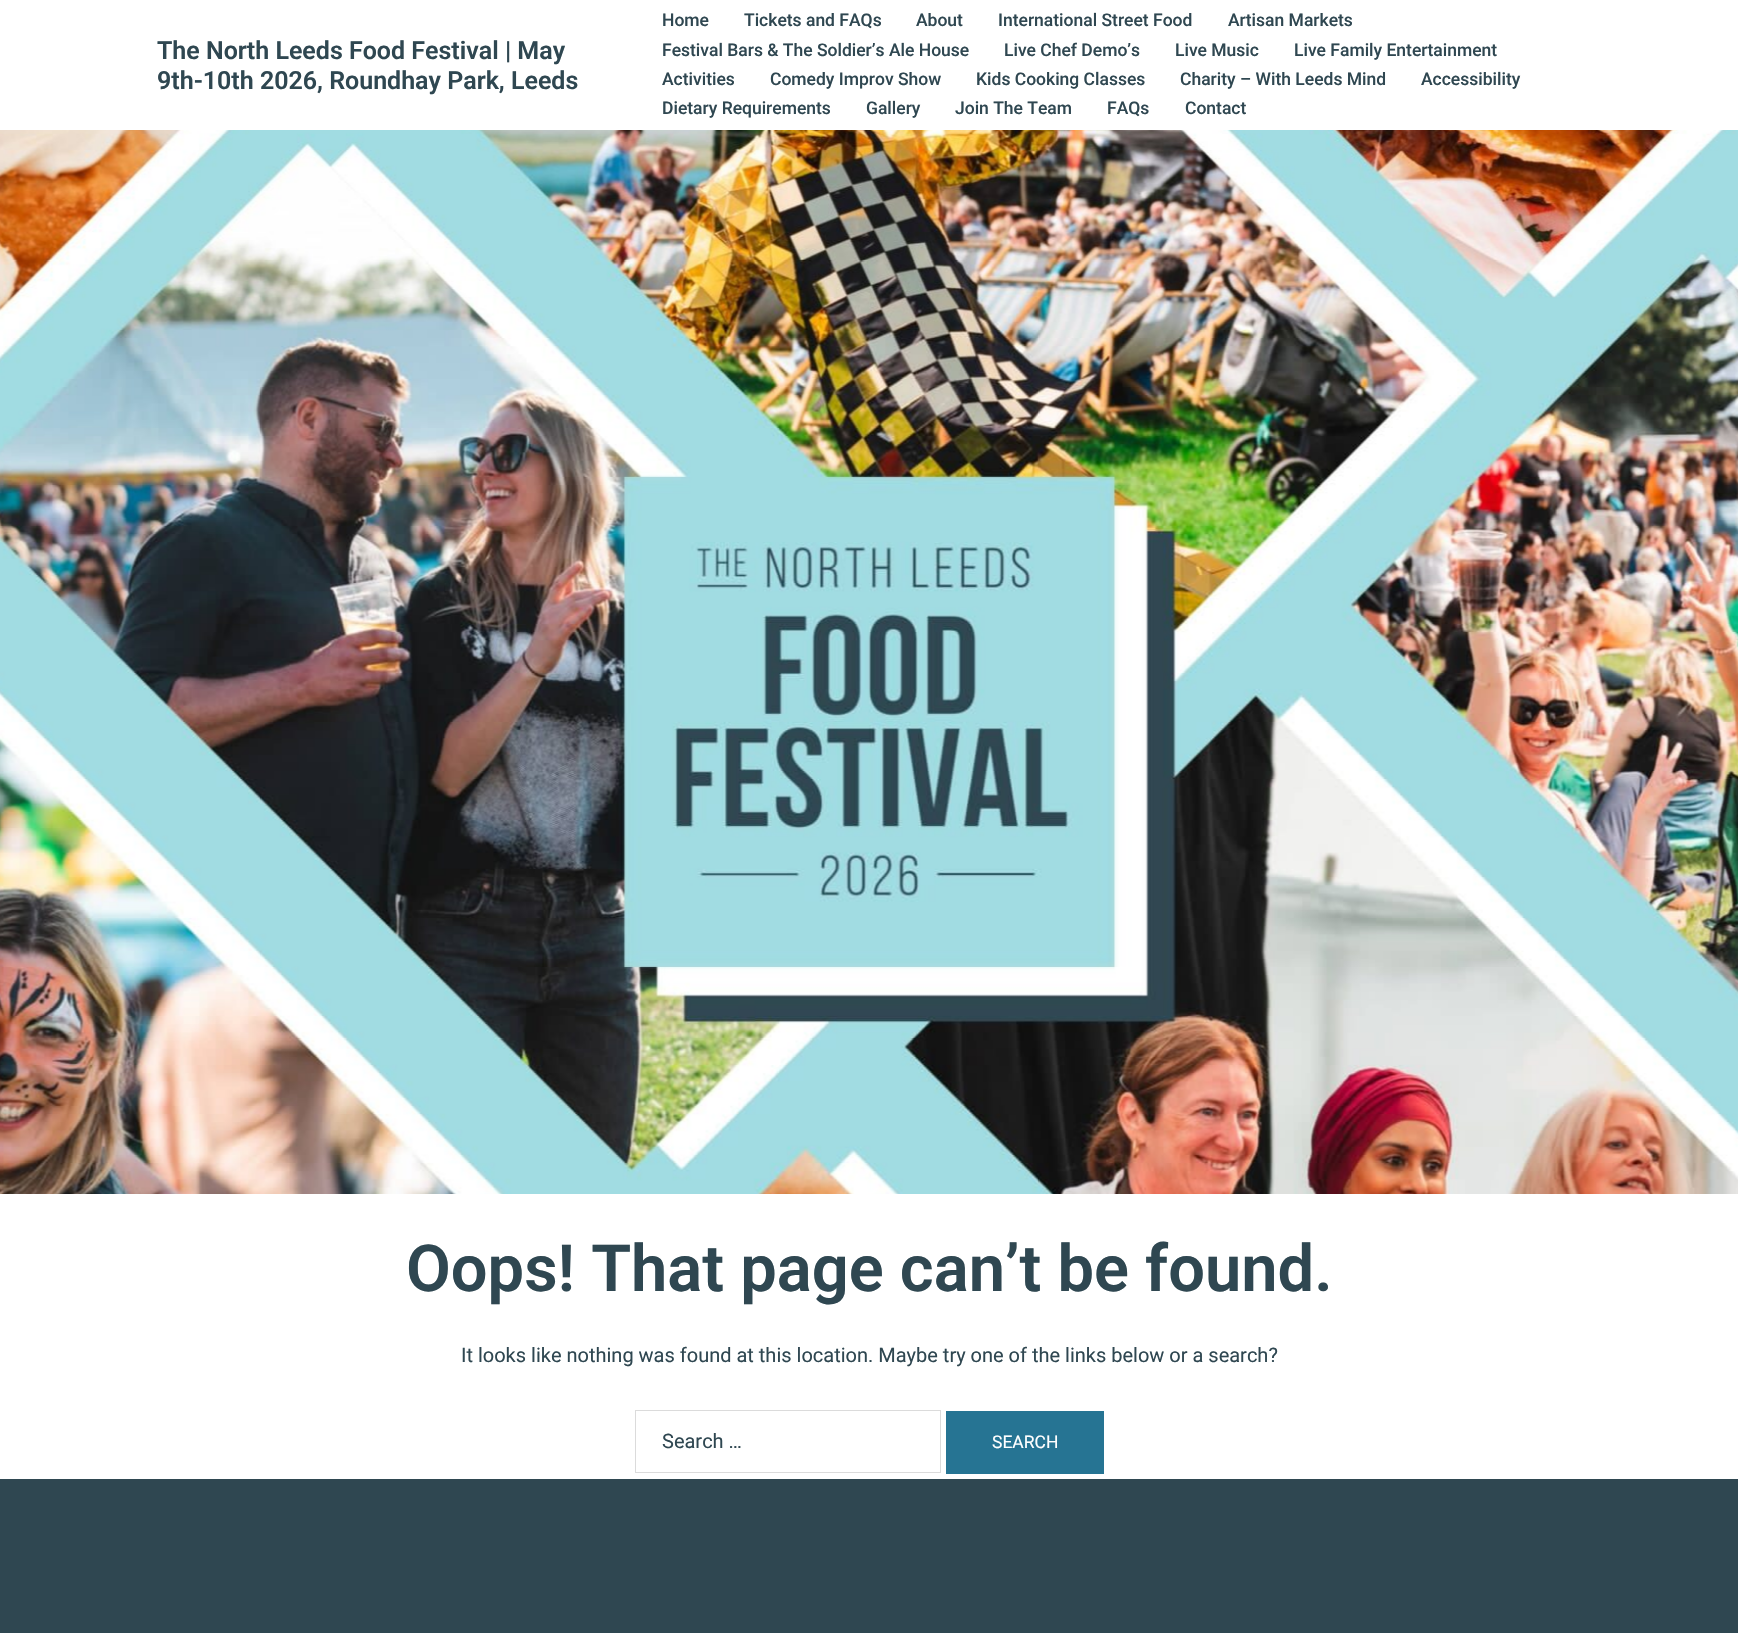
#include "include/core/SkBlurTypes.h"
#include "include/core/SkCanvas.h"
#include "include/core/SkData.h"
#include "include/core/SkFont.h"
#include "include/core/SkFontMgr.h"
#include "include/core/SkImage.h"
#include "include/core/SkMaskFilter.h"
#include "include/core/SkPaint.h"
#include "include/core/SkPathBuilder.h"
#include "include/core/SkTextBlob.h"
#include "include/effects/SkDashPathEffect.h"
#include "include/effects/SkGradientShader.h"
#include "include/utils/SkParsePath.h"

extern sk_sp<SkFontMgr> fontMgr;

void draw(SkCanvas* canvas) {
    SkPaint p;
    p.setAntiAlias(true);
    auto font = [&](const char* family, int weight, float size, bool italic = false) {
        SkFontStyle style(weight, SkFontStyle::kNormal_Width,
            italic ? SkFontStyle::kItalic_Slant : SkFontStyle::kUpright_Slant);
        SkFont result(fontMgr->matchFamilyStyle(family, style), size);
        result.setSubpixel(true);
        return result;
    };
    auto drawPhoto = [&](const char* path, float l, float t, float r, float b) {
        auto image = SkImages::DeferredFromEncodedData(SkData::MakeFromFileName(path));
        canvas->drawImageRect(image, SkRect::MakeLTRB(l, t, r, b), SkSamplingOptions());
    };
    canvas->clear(0xFFFFFFFF);
    auto font1 = font("Roboto", 600, 25);
    p.setColor(0xFF2F4751);
    canvas->drawString("The North Leeds Food Festival | May", 157, 59, font1, p);
    canvas->drawString("9th-10th 2026, Roundhay Park, Leeds", 157, 89, font1, p);
    auto font2 = font("Roboto", 500, 17.5f);
    {
        const struct { const char* s; float x, y; } items[] = {
            {"Home", 662, 26},
            {"Tickets and FAQs", 744, 26},
            {"About", 916, 26},
            {"International Street Food", 998, 26},
            {"Artisan Markets", 1228, 26},
            {"Festival Bars & The Soldier’s Ale House", 662, 56},
            {"Live Chef Demo’s", 1004, 56},
            {"Live Music", 1175, 56},
            {"Live Family Entertainment", 1294, 56},
            {"Activities", 662, 85},
            {"Comedy Improv Show", 770, 85},
            {"Kids Cooking Classes", 976, 85},
            {"Charity – With Leeds Mind", 1180, 85},
            {"Accessibility", 1421, 85},
            {"Dietary Requirements", 662, 114},
            {"Gallery", 866, 114},
            {"Join The Team", 955, 114},
            {"FAQs", 1107, 114},
            {"Contact", 1185, 114},
        };
        for (auto [s, x, y] : items) {
            canvas->drawString(s, x, y, font2, p);
        }
    }
    drawPhoto("media/1.png", 0, 130, 1738, 1194);
    auto font3 = font("Roboto", 600, 65);
    canvas->drawString("Oops! That page can’t be found.", 406, 1291, font3, p);
    auto font4 = font("Roboto", 400, 20);
    canvas->drawString("It looks like nothing was found at this location. Maybe try one of the links below or a search?", 461, 1362, font4, p);
    p.setStyle(SkPaint::kStroke_Style);
    p.setStrokeWidth(1);
    p.setColor(0xFFDBDBDB);
    canvas->drawRect(SkRect::MakeLTRB(635.5f, 1410.5f, 940.5f, 1472.5f), p);
    p.setStyle(SkPaint::kFill_Style);
    p.setColor(0xFF2F4751);
    canvas->drawString("Search …", 662, 1448, font4, p);
    p.setColor(0xFF267493);
    canvas->drawRect(SkRect::MakeLTRB(946, 1411, 1104, 1474), p);
    auto font5 = font("Roboto", 400, 17.5f);
    p.setColor(0xFFFFFFFF);
    canvas->drawString("SEARCH", 992, 1448, font5, p);
    p.setColor(0xFF2F4751);
    canvas->drawRect(SkRect::MakeLTRB(0, 1479, 1738, 1633), p);
}
